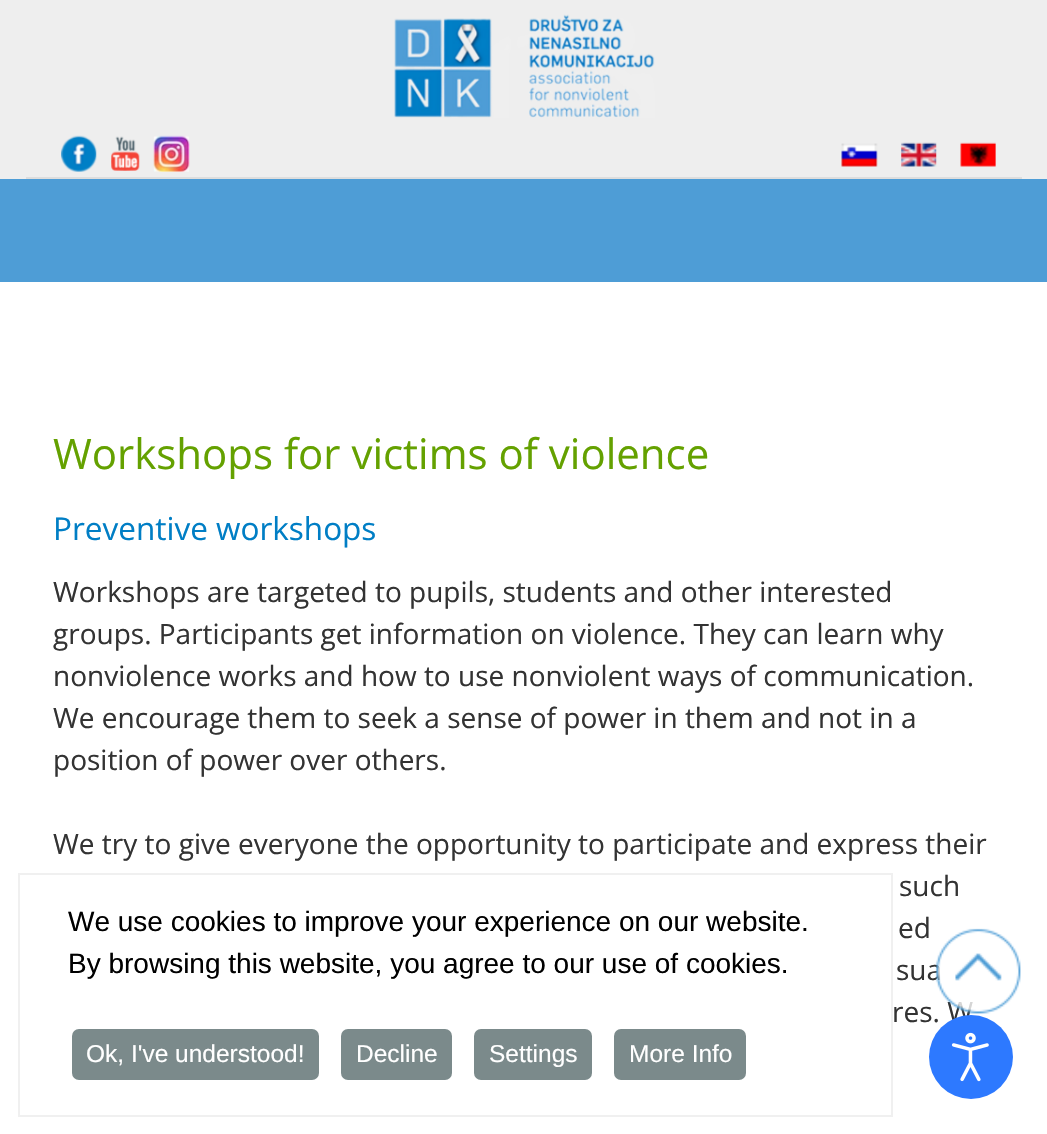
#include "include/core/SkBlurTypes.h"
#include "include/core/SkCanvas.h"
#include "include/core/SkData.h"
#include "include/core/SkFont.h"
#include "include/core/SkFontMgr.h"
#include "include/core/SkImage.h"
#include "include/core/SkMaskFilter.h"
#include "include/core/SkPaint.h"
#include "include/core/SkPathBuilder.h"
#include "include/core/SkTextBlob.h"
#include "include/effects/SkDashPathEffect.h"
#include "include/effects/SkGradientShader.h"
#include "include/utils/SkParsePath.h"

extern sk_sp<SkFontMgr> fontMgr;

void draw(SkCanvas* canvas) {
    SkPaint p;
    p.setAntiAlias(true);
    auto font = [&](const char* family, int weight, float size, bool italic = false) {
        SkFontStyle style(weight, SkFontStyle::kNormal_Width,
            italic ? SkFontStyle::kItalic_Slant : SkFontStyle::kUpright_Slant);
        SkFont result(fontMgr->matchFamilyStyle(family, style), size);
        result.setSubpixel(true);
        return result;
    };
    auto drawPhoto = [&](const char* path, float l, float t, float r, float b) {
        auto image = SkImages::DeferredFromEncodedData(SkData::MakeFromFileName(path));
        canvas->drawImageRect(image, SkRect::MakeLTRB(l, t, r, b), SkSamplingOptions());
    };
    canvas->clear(0xFFFFFFFF);
    p.setColor(0xFFEEEEEE);
    canvas->drawRect(SkRect::MakeLTRB(0, 0, 1047, 179), p);
    drawPhoto("media/1.png", 394, 14, 655, 118);
    drawPhoto("media/2.png", 61, 135, 97, 172);
    drawPhoto("media/3.png", 111, 136, 140, 171);
    drawPhoto("media/4.png", 153, 135, 190, 172);
    drawPhoto("media/5.png", 841, 143, 878, 167);
    drawPhoto("media/6.png", 901, 142, 937, 167);
    drawPhoto("media/7.png", 960, 142, 996, 167);
    p.setColor(0xFFDDDDDD);
    canvas->drawRect(SkRect::MakeLTRB(26, 177, 1022, 179), p);
    p.setColor(0xFF4E9DD6);
    canvas->drawRect(SkRect::MakeLTRB(0, 179, 1047, 282), p);
    auto font1 = font("Open Sans", 400, 42);
    p.setColor(0xFF64A100);
    canvas->drawString("Workshops for victims of violence", 53, 469, font1, p);
    auto font2 = font("Open Sans", 400, 31.5f);
    p.setColor(0xFF007EC5);
    canvas->drawString("Preventive workshops", 53, 540, font2, p);
    auto font3 = font("Open Sans", 400, 28);
    p.setColor(0xFF333333);
    {
        const struct { const char* s; float x, y; } items[] = {
            {"Workshops are targeted to pupils, students and other interested", 53, 602},
            {"groups. Participants get information on violence. They can learn why", 53, 644},
            {"nonviolence works and how to use nonviolent ways of communication.", 53, 686},
            {"We encourage them to seek a sense of power in them and not in a", 53, 728},
            {"position of power over others.", 53, 770},
            {"We try to give everyone the opportunity to participate and express their", 53, 854},
            {"such", 899, 896},
            {"ed", 898, 938},
            {"sua", 896, 980},
            {"res. W", 892, 1022},
        };
        for (auto [s, x, y] : items) {
            canvas->drawString(s, x, y, font3, p);
        }
    }
    p.setStyle(SkPaint::kStroke_Style);
    p.setStrokeWidth(2);
    p.setColor(0xFFF0F0F0);
    canvas->drawRect(SkRect::MakeLTRB(19, 874, 892, 1116), p);
    auto font4 = font("Liberation Sans", 400, 28);
    p.setStyle(SkPaint::kFill_Style);
    p.setColor(0xFF000000);
    canvas->drawString("We use cookies to improve your experience on our website.", 68, 931, font4, p);
    canvas->drawString("By browsing this website, you agree to our use of cookies.", 68, 973, font4, p);
    p.setColor(0xFF7B8A8B);
    canvas->drawRoundRect(SkRect::MakeLTRB(72, 1029, 319, 1080), 7, 7, p);
    auto font5 = font("Liberation Sans", 400, 24.5f);
    p.setColor(0xFFFFFFFF);
    canvas->drawString("Ok, I've understood!", 86, 1062, font5, p);
    p.setColor(0xFF7B8A8B);
    canvas->drawRoundRect(SkRect::MakeLTRB(341, 1029, 452, 1080), 7, 7, p);
    p.setColor(0xFFFFFFFF);
    canvas->drawString("Decline", 356, 1062, font5, p);
    p.setColor(0xFF7B8A8B);
    canvas->drawRoundRect(SkRect::MakeLTRB(474, 1029, 592, 1080), 7, 7, p);
    p.setColor(0xFFFFFFFF);
    canvas->drawString("Settings", 489, 1062, font5, p);
    p.setColor(0xFF7B8A8B);
    canvas->drawRoundRect(SkRect::MakeLTRB(614, 1029, 746, 1080), 7, 7, p);
    p.setColor(0xFFFFFFFF);
    canvas->drawString("More Info", 629, 1062, font5, p);
    drawPhoto("media/8.png", 935, 928, 1021, 1014);
    p.setColor(0xFF2D79FF);
    canvas->drawCircle(971, 1057, 42, p);
    drawPhoto("media/9.png", 951, 1032, 989, 1082);
}
